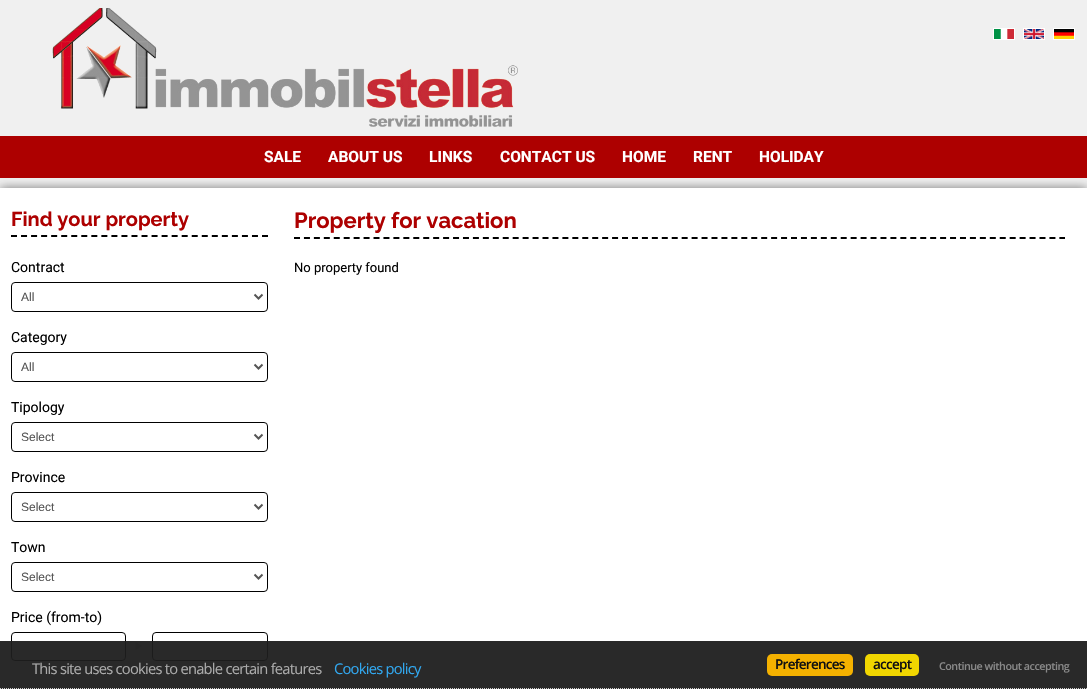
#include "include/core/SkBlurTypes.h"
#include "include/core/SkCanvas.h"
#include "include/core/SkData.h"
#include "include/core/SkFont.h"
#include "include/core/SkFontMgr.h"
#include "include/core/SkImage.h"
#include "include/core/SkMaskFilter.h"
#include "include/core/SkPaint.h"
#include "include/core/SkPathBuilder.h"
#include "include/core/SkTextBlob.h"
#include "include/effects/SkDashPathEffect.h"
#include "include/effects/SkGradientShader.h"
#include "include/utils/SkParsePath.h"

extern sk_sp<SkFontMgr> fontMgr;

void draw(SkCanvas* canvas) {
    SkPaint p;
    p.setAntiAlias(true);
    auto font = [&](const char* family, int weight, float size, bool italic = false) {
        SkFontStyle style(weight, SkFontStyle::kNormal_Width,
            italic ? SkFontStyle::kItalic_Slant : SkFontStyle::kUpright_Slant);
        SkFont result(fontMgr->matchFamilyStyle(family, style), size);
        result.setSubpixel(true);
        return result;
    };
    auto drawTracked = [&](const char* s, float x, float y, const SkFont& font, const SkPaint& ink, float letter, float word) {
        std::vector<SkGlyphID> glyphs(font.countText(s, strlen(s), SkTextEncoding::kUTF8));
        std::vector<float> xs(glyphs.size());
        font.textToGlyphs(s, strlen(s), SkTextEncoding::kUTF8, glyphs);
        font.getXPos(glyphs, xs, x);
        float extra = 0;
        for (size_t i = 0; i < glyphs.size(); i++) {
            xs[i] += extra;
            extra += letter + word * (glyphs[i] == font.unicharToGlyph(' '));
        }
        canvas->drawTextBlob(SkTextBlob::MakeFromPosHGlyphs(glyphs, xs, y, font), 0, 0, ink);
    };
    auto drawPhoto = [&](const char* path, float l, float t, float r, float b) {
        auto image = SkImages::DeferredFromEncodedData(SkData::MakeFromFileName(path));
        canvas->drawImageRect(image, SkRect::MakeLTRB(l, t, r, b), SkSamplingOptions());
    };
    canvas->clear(0xFFF0F0F0);
    drawPhoto("media/1.png", 52, 8, 518, 127);
    p.setStyle(SkPaint::kStroke_Style);
    p.setStrokeWidth(1);
    p.setColor(0xFFFFFFFF);
    canvas->drawRect(SkRect::MakeLTRB(993.5f, 28.5f, 1014.5f, 39.5f), p);
    drawPhoto("media/2.png", 994, 29, 1014, 39);
    canvas->drawRect(SkRect::MakeLTRB(1023.5f, 28.5f, 1044.5f, 39.5f), p);
    drawPhoto("media/3.png", 1024, 29, 1044, 39);
    canvas->drawRect(SkRect::MakeLTRB(1053.5f, 28.5f, 1074.5f, 39.5f), p);
    drawPhoto("media/4.png", 1054, 29, 1074, 39);
    p.setStyle(SkPaint::kFill_Style);
    p.setColor(0x80000000);
    p.setMaskFilter(SkMaskFilter::MakeBlur(kNormal_SkBlurStyle, 5));
    canvas->drawRect(SkRect::MakeLTRB(0, 188, 1087, 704), p);
    p.setMaskFilter(nullptr);
    p.setColor(0xFFAD0000);
    canvas->drawRect(SkRect::MakeLTRB(0, 136, 1087, 178), p);
    auto font1 = font("Roboto", 700, 15.5f);
    p.setColor(0xFFFFFFFF);
    {
        const struct { const char* s; float x, y; } items[] = {
            {"SALE", 264, 162},
            {"ABOUT US", 328, 162},
            {"LINKS", 429, 162},
            {"CONTACT US", 500, 162},
            {"HOME", 622, 162},
            {"RENT", 693, 162},
            {"HOLIDAY", 759, 162},
        };
        for (auto [s, x, y] : items) {
            canvas->drawString(s, x, y, font1, p);
        }
    }
    canvas->drawRect(SkRect::MakeLTRB(0, 188, 1087, 689), p);
    p.setStyle(SkPaint::kStroke_Style);
    p.setStrokeWidth(2);
    p.setColor(0xFF000000);
    p.setPathEffect(SkDashPathEffect::Make({{6, 4.04f}}, 0));
    canvas->drawPath(SkPathBuilder().moveTo(11, 236).lineTo(268, 236).detach(), p);
    p.setPathEffect(nullptr);
    auto font2 = font("Raleway", 700, 20);
    p.setStyle(SkPaint::kFill_Style);
    p.setColor(0xFFAD0000);
    canvas->drawString("Find your property", 11, 226, font2, p);
    auto font3 = font("Roboto", 400, 14);
    p.setColor(0xFF000000);
    canvas->drawString("Contract", 11, 272, font3, p);
    p.setStyle(SkPaint::kStroke_Style);
    p.setStrokeWidth(1);
    canvas->drawRoundRect(SkRect::MakeLTRB(11.5f, 282.5f, 267.5f, 311.5f), 3.5f, 3.5f, p);
    p.setStrokeWidth(2);
    p.setColor(0xFF555555);
    canvas->drawPath(SkPathBuilder().moveTo(254.5f, 294.5f).lineTo(258.5f, 298.5f).lineTo(262.5f, 294.5f).detach(), p);
    auto font4 = font("Liberation Sans", 400, 12);
    p.setStyle(SkPaint::kFill_Style);
    canvas->drawString("All", 21, 301, font4, p);
    p.setColor(0xFF000000);
    canvas->drawString("Category", 11, 342, font3, p);
    p.setStyle(SkPaint::kStroke_Style);
    p.setStrokeWidth(1);
    canvas->drawRoundRect(SkRect::MakeLTRB(11.5f, 352.5f, 267.5f, 381.5f), 3.5f, 3.5f, p);
    p.setStrokeWidth(2);
    p.setColor(0xFF555555);
    canvas->drawPath(SkPathBuilder().moveTo(254.5f, 364.5f).lineTo(258.5f, 368.5f).lineTo(262.5f, 364.5f).detach(), p);
    p.setStyle(SkPaint::kFill_Style);
    canvas->drawString("All", 21, 371, font4, p);
    p.setColor(0xFF000000);
    canvas->drawString("Tipology", 11, 412, font3, p);
    p.setStyle(SkPaint::kStroke_Style);
    p.setStrokeWidth(1);
    canvas->drawRoundRect(SkRect::MakeLTRB(11.5f, 422.5f, 267.5f, 451.5f), 3.5f, 3.5f, p);
    p.setStrokeWidth(2);
    p.setColor(0xFF555555);
    canvas->drawPath(SkPathBuilder().moveTo(254.5f, 434.5f).lineTo(258.5f, 438.5f).lineTo(262.5f, 434.5f).detach(), p);
    p.setStyle(SkPaint::kFill_Style);
    canvas->drawString("Select", 21, 441, font4, p);
    p.setColor(0xFF000000);
    canvas->drawString("Province", 11, 482, font3, p);
    p.setStyle(SkPaint::kStroke_Style);
    p.setStrokeWidth(1);
    canvas->drawRoundRect(SkRect::MakeLTRB(11.5f, 492.5f, 267.5f, 521.5f), 3.5f, 3.5f, p);
    p.setStrokeWidth(2);
    p.setColor(0xFF555555);
    canvas->drawPath(SkPathBuilder().moveTo(254.5f, 504.5f).lineTo(258.5f, 508.5f).lineTo(262.5f, 504.5f).detach(), p);
    p.setStyle(SkPaint::kFill_Style);
    canvas->drawString("Select", 21, 511, font4, p);
    p.setColor(0xFF000000);
    canvas->drawString("Town", 11, 552, font3, p);
    p.setStyle(SkPaint::kStroke_Style);
    p.setStrokeWidth(1);
    canvas->drawRoundRect(SkRect::MakeLTRB(11.5f, 562.5f, 267.5f, 591.5f), 3.5f, 3.5f, p);
    p.setStrokeWidth(2);
    p.setColor(0xFF555555);
    canvas->drawPath(SkPathBuilder().moveTo(254.5f, 574.5f).lineTo(258.5f, 578.5f).lineTo(262.5f, 574.5f).detach(), p);
    p.setStyle(SkPaint::kFill_Style);
    canvas->drawString("Select", 21, 581, font4, p);
    p.setColor(0xFF000000);
    canvas->drawString("Price (from-to)", 11, 622, font3, p);
    p.setStyle(SkPaint::kStroke_Style);
    p.setStrokeWidth(1);
    canvas->drawRoundRect(SkRect::MakeLTRB(11.5f, 632.5f, 125.5f, 660.5f), 3.5f, 3.5f, p);
    drawPhoto("media/5.png", 135, 642, 143, 650);
    canvas->drawRoundRect(SkRect::MakeLTRB(152.5f, 632.5f, 267.5f, 660.5f), 3.5f, 3.5f, p);
    p.setStrokeWidth(2);
    p.setPathEffect(SkDashPathEffect::Make({{6, 3.94f}}, 0));
    canvas->drawPath(SkPathBuilder().moveTo(294, 238).lineTo(1065, 238).detach(), p);
    p.setPathEffect(nullptr);
    auto font5 = font("Raleway", 700, 22);
    p.setStyle(SkPaint::kFill_Style);
    p.setColor(0xFFAD0000);
    canvas->drawString("Property for vacation", 294, 228, font5, p);
    auto font6 = font("Roboto", 400, 13);
    p.setColor(0xFF000000);
    canvas->drawString("No property found", 294, 272, font6, p);
    p.setColor(0xF21D1D1D);
    canvas->drawRect(SkRect::MakeLTRB(0, 641, 1087, 689), p);
    p.setStyle(SkPaint::kStroke_Style);
    p.setStrokeWidth(1);
    p.setColor(0xFFCCCCCC);
    p.setPathEffect(SkDashPathEffect::Make({{1, 1}}, 0));
    canvas->drawPath(SkPathBuilder().moveTo(0, 688.5f).lineTo(1087, 688.5f).detach(), p);
    p.setPathEffect(nullptr);
    auto font7 = font("Open Sans", 400, 14.7f);
    p.setStyle(SkPaint::kFill_Style);
    p.setColor(0xFFAAAAAA);
    drawTracked("This site uses cookies to enable certain features", 32, 674, font7, p, -0.75f, 0);
    p.setColor(0xFF31A8F0);
    drawTracked("Cookies policy", 334, 674, font7, p, -0.75f, 0);
    p.setColor(0xFFF4B100);
    canvas->drawRoundRect(SkRect::MakeLTRB(767, 654, 853, 676), 5, 5, p);
    auto font8 = font("Open Sans", 600, 13.5f);
    p.setColor(0xFF111111);
    drawTracked("Preferences", 775, 669, font8, p, -0.75f, 0);
    p.setColor(0xFFF1D600);
    canvas->drawRoundRect(SkRect::MakeLTRB(865, 654, 919, 676), 5, 5, p);
    p.setColor(0xFF111111);
    drawTracked("accept", 873, 669, font8, p, -0.75f, 0);
    auto font9 = font("Open Sans", 600, 10.75f);
    p.setColor(0xFF888888);
    drawTracked("Continue without accepting", 939, 670, font9, p, -0.5f, 0);
}
